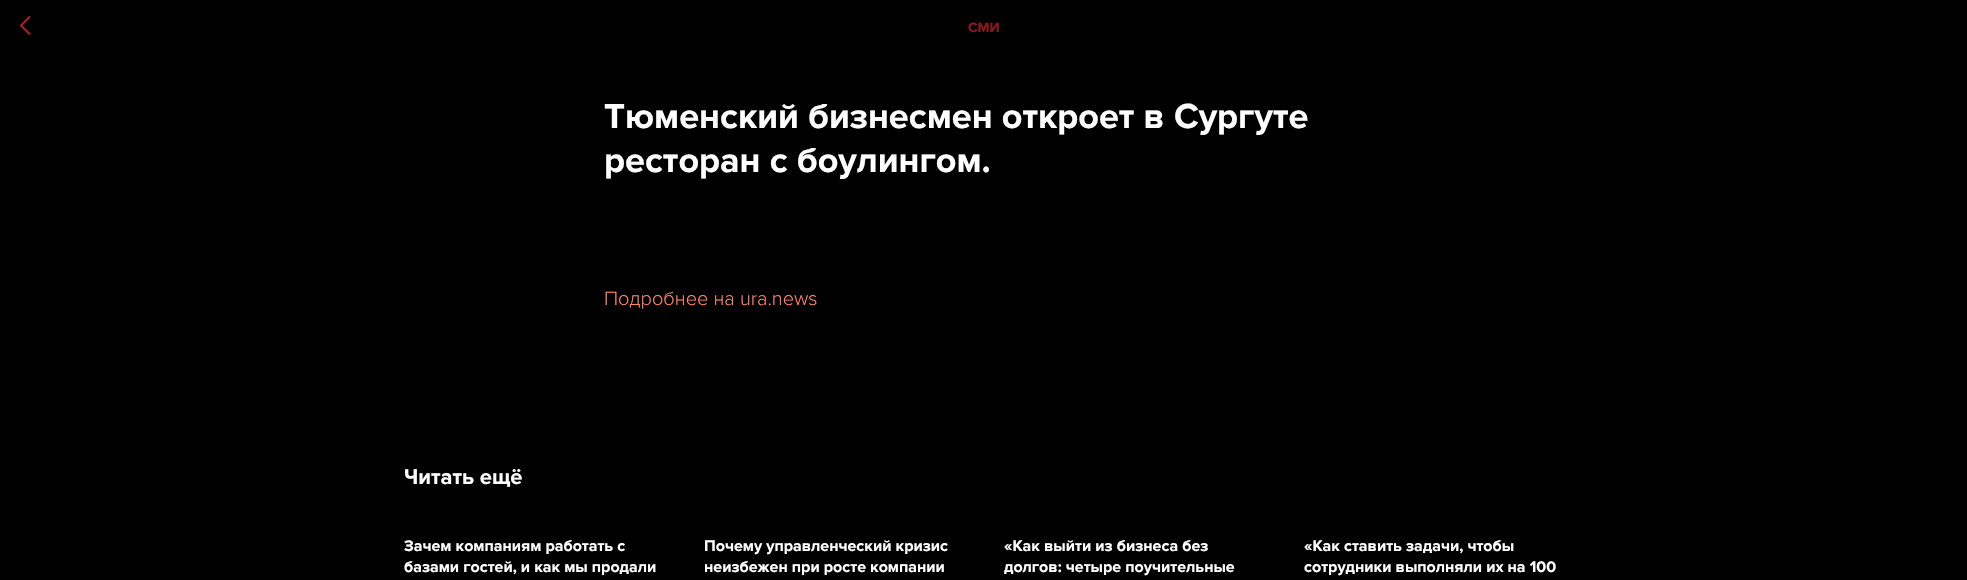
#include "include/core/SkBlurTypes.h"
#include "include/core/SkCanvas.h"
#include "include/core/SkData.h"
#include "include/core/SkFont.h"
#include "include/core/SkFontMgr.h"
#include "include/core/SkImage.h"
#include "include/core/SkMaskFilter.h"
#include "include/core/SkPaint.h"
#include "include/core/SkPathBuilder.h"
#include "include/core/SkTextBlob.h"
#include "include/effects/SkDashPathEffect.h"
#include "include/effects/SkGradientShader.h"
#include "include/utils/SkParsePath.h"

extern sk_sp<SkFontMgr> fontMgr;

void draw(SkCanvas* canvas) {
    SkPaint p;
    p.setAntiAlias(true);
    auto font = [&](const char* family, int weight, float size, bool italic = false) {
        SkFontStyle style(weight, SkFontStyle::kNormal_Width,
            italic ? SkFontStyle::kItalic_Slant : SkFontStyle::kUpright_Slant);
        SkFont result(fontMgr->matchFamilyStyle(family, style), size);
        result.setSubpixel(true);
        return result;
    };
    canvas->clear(0xFF000000);
    p.setStyle(SkPaint::kStroke_Style);
    p.setStrokeWidth(2);
    p.setColor(0xFFB01F24);
    canvas->drawPath(SkPathBuilder().moveTo(30, 34.5f).lineTo(21, 25.5f).lineTo(30, 16.5f).detach(), p);
    auto font1 = font("Proxima Nova", 700, 14);
    p.setStyle(SkPaint::kFill_Style);
    p.setColor(0xFF8D191D);
    canvas->drawString("СМИ", 968, 32, font1, p);
    auto font2 = font("Proxima Nova", 700, 36);
    p.setColor(0xFFFFFFFF);
    canvas->drawString("Тюменский бизнесмен откроет в Сургуте", 604, 128, font2, p);
    canvas->drawString("ресторан с боулингом.", 604, 172, font2, p);
    auto font3 = font("Proxima Nova", 300, 20);
    p.setColor(0xFFFF8562);
    canvas->drawString("Подробнее на ura.news", 604, 305, font3, p);
    auto font4 = font("Proxima Nova", 700, 22);
    p.setColor(0xFFFFFFFF);
    canvas->drawString("Читать ещё", 404, 484, font4, p);
    auto font5 = font("Proxima Nova", 700, 16);
    {
        const struct { const char* s; float x, y; } items[] = {
            {"Зачем компаниям работать с", 404, 551},
            {"базами гостей, и как мы продали", 404, 572},
            {"Почему управленческий кризис", 704, 551},
            {"неизбежен при росте компании", 704, 572},
            {"«Как выйти из бизнеса без", 1004, 551},
            {"долгов: четыре поучительные", 1004, 572},
            {"«Как ставить задачи, чтобы", 1304, 551},
            {"сотрудники выполняли их на 100", 1304, 572},
        };
        for (auto [s, x, y] : items) {
            canvas->drawString(s, x, y, font5, p);
        }
    }
}
